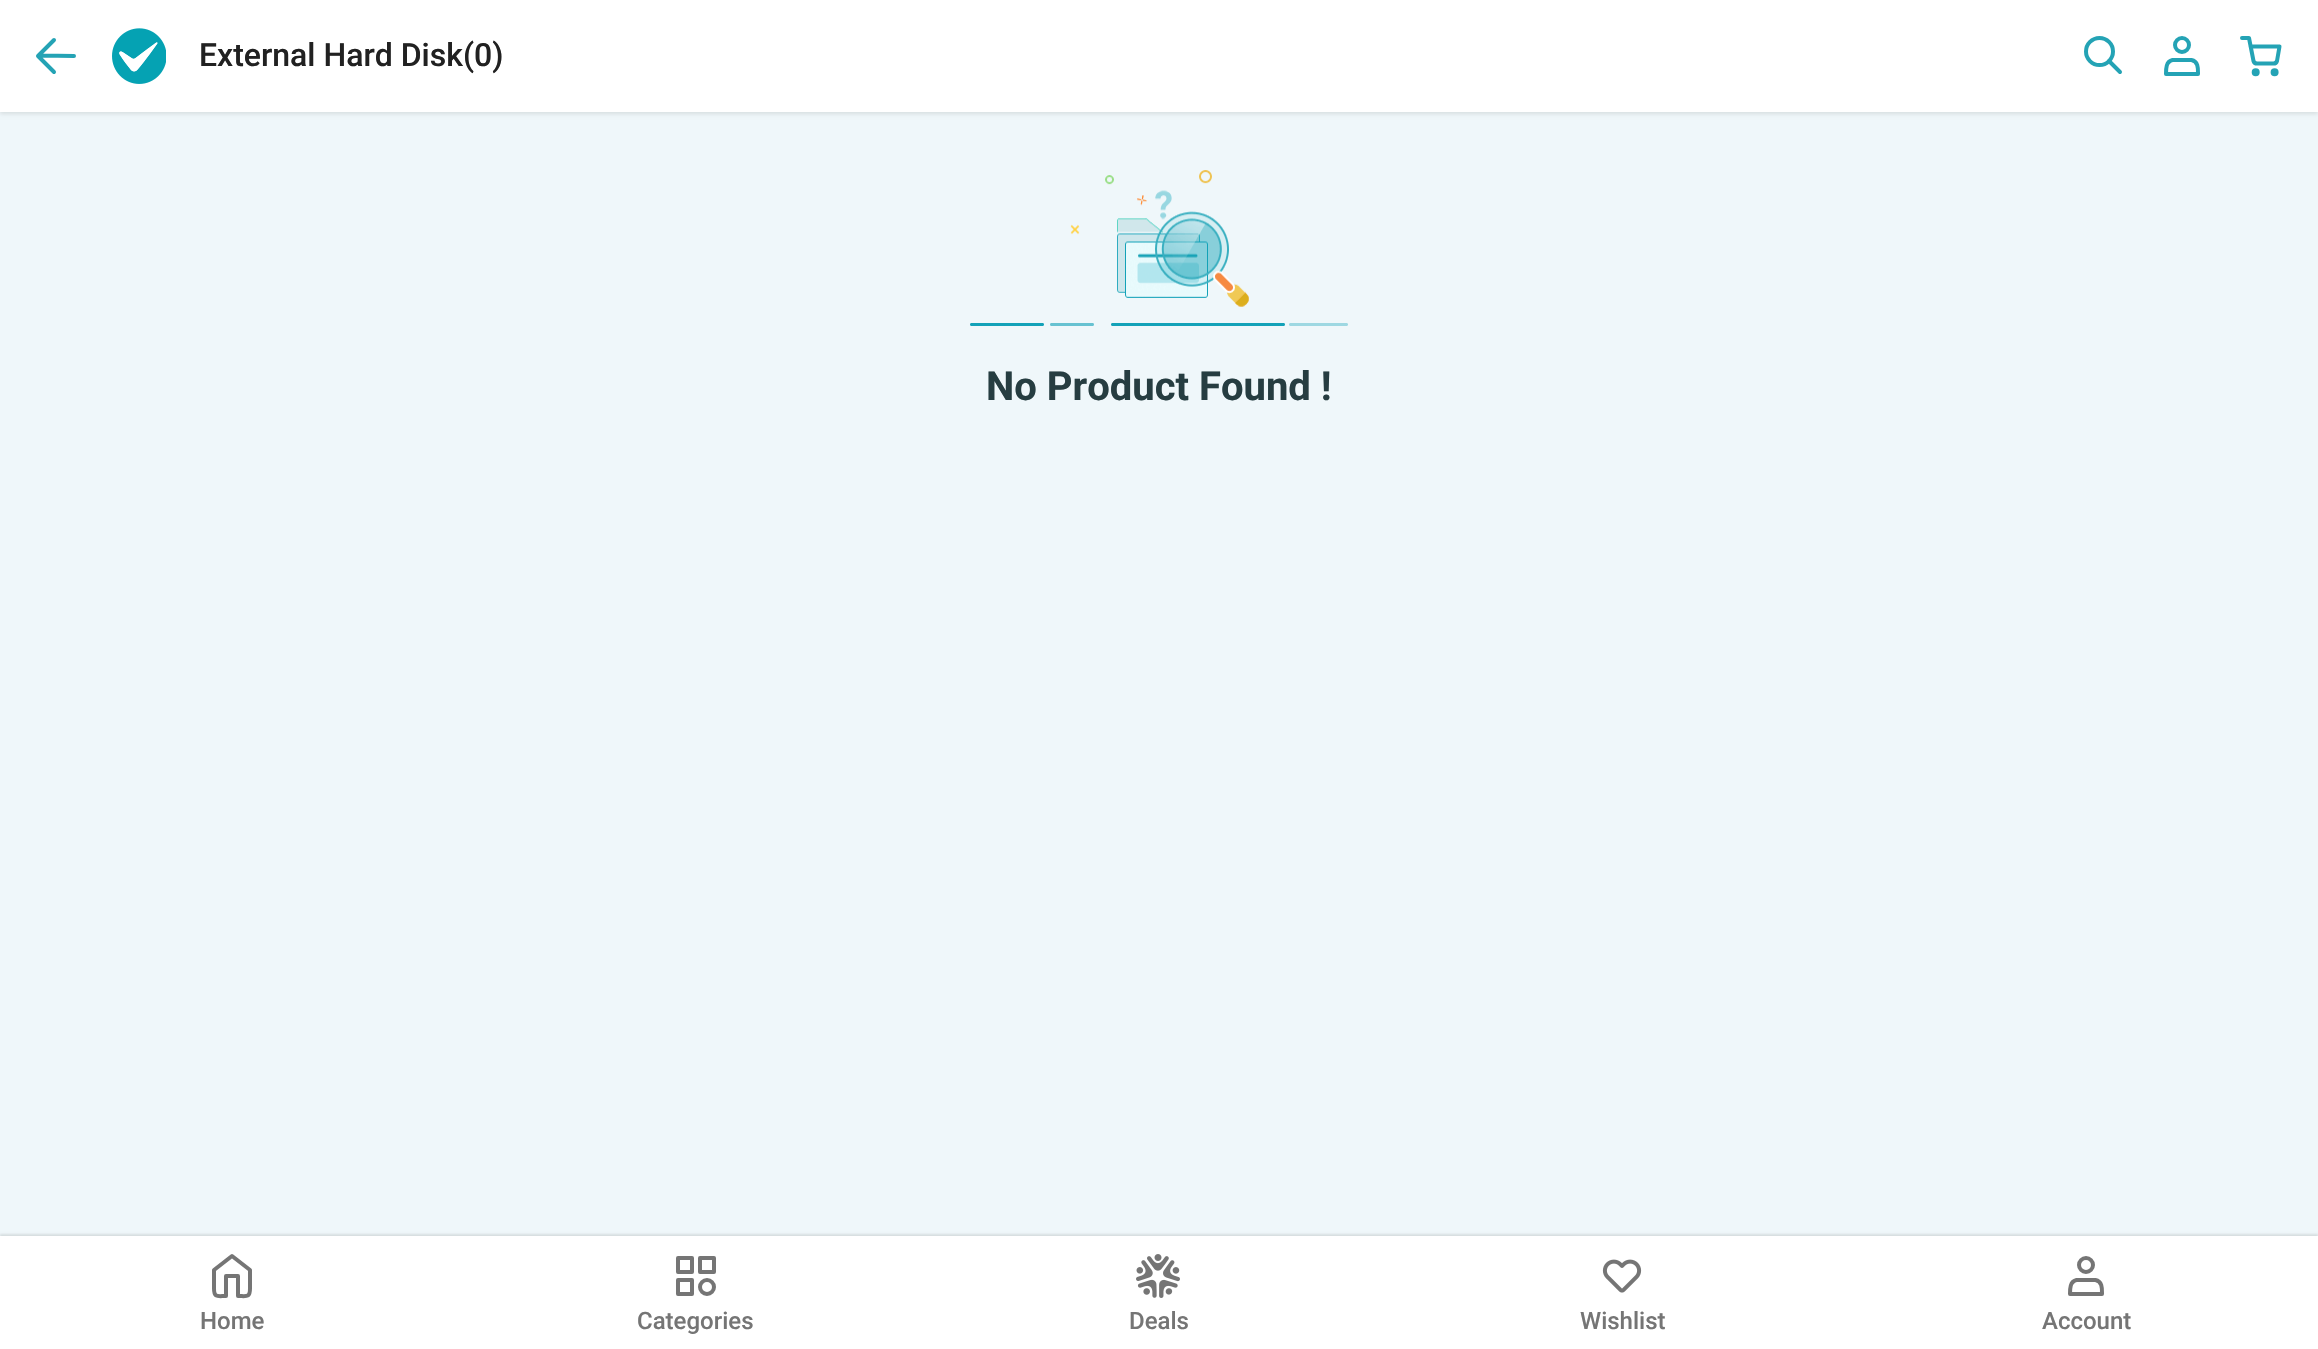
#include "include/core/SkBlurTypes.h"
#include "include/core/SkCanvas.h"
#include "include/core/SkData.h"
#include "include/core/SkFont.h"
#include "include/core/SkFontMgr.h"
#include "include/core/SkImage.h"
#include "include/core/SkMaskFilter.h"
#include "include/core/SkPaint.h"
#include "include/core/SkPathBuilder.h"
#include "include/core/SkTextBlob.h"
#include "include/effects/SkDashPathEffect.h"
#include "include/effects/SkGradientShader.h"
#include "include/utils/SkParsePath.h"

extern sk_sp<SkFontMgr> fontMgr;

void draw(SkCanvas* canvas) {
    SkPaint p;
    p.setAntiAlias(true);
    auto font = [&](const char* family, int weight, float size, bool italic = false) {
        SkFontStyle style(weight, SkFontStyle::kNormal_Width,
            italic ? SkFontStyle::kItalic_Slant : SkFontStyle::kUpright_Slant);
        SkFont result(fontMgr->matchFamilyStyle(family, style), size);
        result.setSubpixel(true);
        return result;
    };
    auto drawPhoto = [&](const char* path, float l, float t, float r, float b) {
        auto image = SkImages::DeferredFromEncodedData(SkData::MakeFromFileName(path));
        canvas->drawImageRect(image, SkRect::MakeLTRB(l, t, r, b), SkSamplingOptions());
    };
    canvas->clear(0xFFEFF7FA);
    p.setColor(0x1A000000);
    p.setMaskFilter(SkMaskFilter::MakeBlur(kNormal_SkBlurStyle, 2));
    canvas->drawRect(SkRect::MakeLTRB(0, 2, 2318, 114), p);
    p.setMaskFilter(nullptr);
    p.setColor(0xFFFFFFFF);
    canvas->drawRect(SkRect::MakeLTRB(0, 0, 2318, 112), p);
    p.setStyle(SkPaint::kStroke_Style);
    p.setStrokeWidth(4);
    p.setStrokeCap(SkPaint::kRound_Cap);
    p.setStrokeJoin(SkPaint::kRound_Join);
    p.setColor(0xFF24A3B5);
    canvas->drawPath(SkPathBuilder().moveTo(54, 40).lineTo(38, 56).lineTo(54, 72).moveTo(74, 56).lineTo(40.5f, 55.5f).detach(), p);
    drawPhoto("media/1.png", 112, 28, 166, 84);
    auto font1 = font("Roboto", 500, 32);
    p.setStyle(SkPaint::kFill_Style);
    p.setColor(0xFF212121);
    canvas->drawString("External Hard Disk(0)", 199, 66, font1, p);
    p.setStyle(SkPaint::kStroke_Style);
    p.setStrokeCap(SkPaint::kButt_Cap);
    p.setStrokeJoin(SkPaint::kMiter_Join);
    p.setColor(0xFF24A3B5);
    canvas->drawCircle(2099.5f, 51.5f, 13.5f, p);
    p.setStrokeCap(SkPaint::kRound_Cap);
    p.setStrokeJoin(SkPaint::kRound_Join);
    canvas->drawPath(SkPathBuilder().moveTo(2120, 72).lineTo(2109, 61).detach(), p);
    canvas->drawPath(SkPathBuilder().moveTo(2198, 74).cubicTo(2198, 68.5f, 2198.5f, 61.5f, 2191.5f, 60).lineTo(2172.5f, 60).cubicTo(2166, 61.5f, 2166, 68.5f, 2166, 74).close().detach(), p);
    p.setStrokeCap(SkPaint::kButt_Cap);
    p.setStrokeJoin(SkPaint::kMiter_Join);
    canvas->drawCircle(2182, 45, 7, p);
    canvas->drawCircle(2255.7f, 72.3f, 2, p);
    canvas->drawCircle(2274.6f, 72.3f, 2, p);
    p.setStrokeCap(SkPaint::kRound_Cap);
    p.setStrokeJoin(SkPaint::kRound_Join);
    canvas->drawPath(SkPathBuilder().moveTo(2242, 38).lineTo(2249, 38).lineTo(2253.5f, 61).cubicTo(2254, 62.5f, 2255, 63.5f, 2257, 63.5f).lineTo(2273.5f, 63.5f).cubicTo(2275, 63.5f, 2276.5f, 62.5f, 2277, 61).lineTo(2279.5f, 46.5f).lineTo(2250.5f, 46.5f).detach(), p);
    drawPhoto("media/2.png", 970, 170, 1348, 326);
    auto font2 = font("Roboto", 700, 40);
    p.setStyle(SkPaint::kFill_Style);
    p.setColor(0xFF263D41);
    canvas->drawString("No Product Found !", 986, 400, font2, p);
    p.setColor(0x1A000000);
    p.setMaskFilter(SkMaskFilter::MakeBlur(kNormal_SkBlurStyle, 1));
    canvas->drawRect(SkRect::MakeLTRB(0, 1234, 2318, 1348), p);
    p.setMaskFilter(nullptr);
    p.setColor(0xFFFFFFFF);
    canvas->drawRect(SkRect::MakeLTRB(0, 1236, 2318, 1349), p);
    p.setStyle(SkPaint::kStroke_Style);
    p.setColor(0xFF757575);
    canvas->drawPath(SkPathBuilder().moveTo(232, 1256).lineTo(250, 1270).lineTo(250, 1288.5f).cubicTo(250, 1298, 246.5f, 1296, 238, 1296).lineTo(238, 1276).lineTo(226, 1276).lineTo(226, 1296).cubicTo(217.5f, 1296, 214, 1298, 214, 1288.5f).lineTo(214, 1270).close().detach(), p);
    auto font3 = font("Roboto", 500, 24);
    p.setStyle(SkPaint::kFill_Style);
    canvas->drawString("Home", 200, 1329, font3, p);
    p.setStyle(SkPaint::kStroke_Style);
    canvas->drawPath(SkPathBuilder().moveTo(678, 1258).lineTo(692, 1258).lineTo(692, 1272).lineTo(678, 1272).close().moveTo(700, 1258).lineTo(714, 1258).lineTo(714, 1272).lineTo(700, 1272).close().detach(), p);
    p.setStrokeCap(SkPaint::kButt_Cap);
    p.setStrokeJoin(SkPaint::kMiter_Join);
    canvas->drawCircle(707, 1287, 7, p);
    p.setStrokeCap(SkPaint::kRound_Cap);
    p.setStrokeJoin(SkPaint::kRound_Join);
    canvas->drawPath(SkPathBuilder().moveTo(678, 1280).lineTo(692, 1280).lineTo(692, 1294).lineTo(678, 1294).close().detach(), p);
    p.setStyle(SkPaint::kFill_Style);
    canvas->drawString("Categories", 637, 1329, font3, p);
    drawPhoto("media/3.png", 1136, 1254, 1180, 1298);
    canvas->drawString("Deals", 1129, 1329, font3, p);
    drawPhoto("media/4.png", 1602, 1259, 1642, 1293);
    canvas->drawString("Wishlist", 1580, 1329, font3, p);
    p.setStyle(SkPaint::kStroke_Style);
    canvas->drawPath(SkPathBuilder().moveTo(2102, 1294).cubicTo(2102, 1288.5f, 2102.5f, 1281.5f, 2095.5f, 1280).lineTo(2076.5f, 1280).cubicTo(2070, 1281.5f, 2070, 1288.5f, 2070, 1294).close().detach(), p);
    p.setStrokeCap(SkPaint::kButt_Cap);
    p.setStrokeJoin(SkPaint::kMiter_Join);
    canvas->drawCircle(2086, 1265, 7, p);
    p.setStyle(SkPaint::kFill_Style);
    canvas->drawString("Account", 2042, 1329, font3, p);
}
